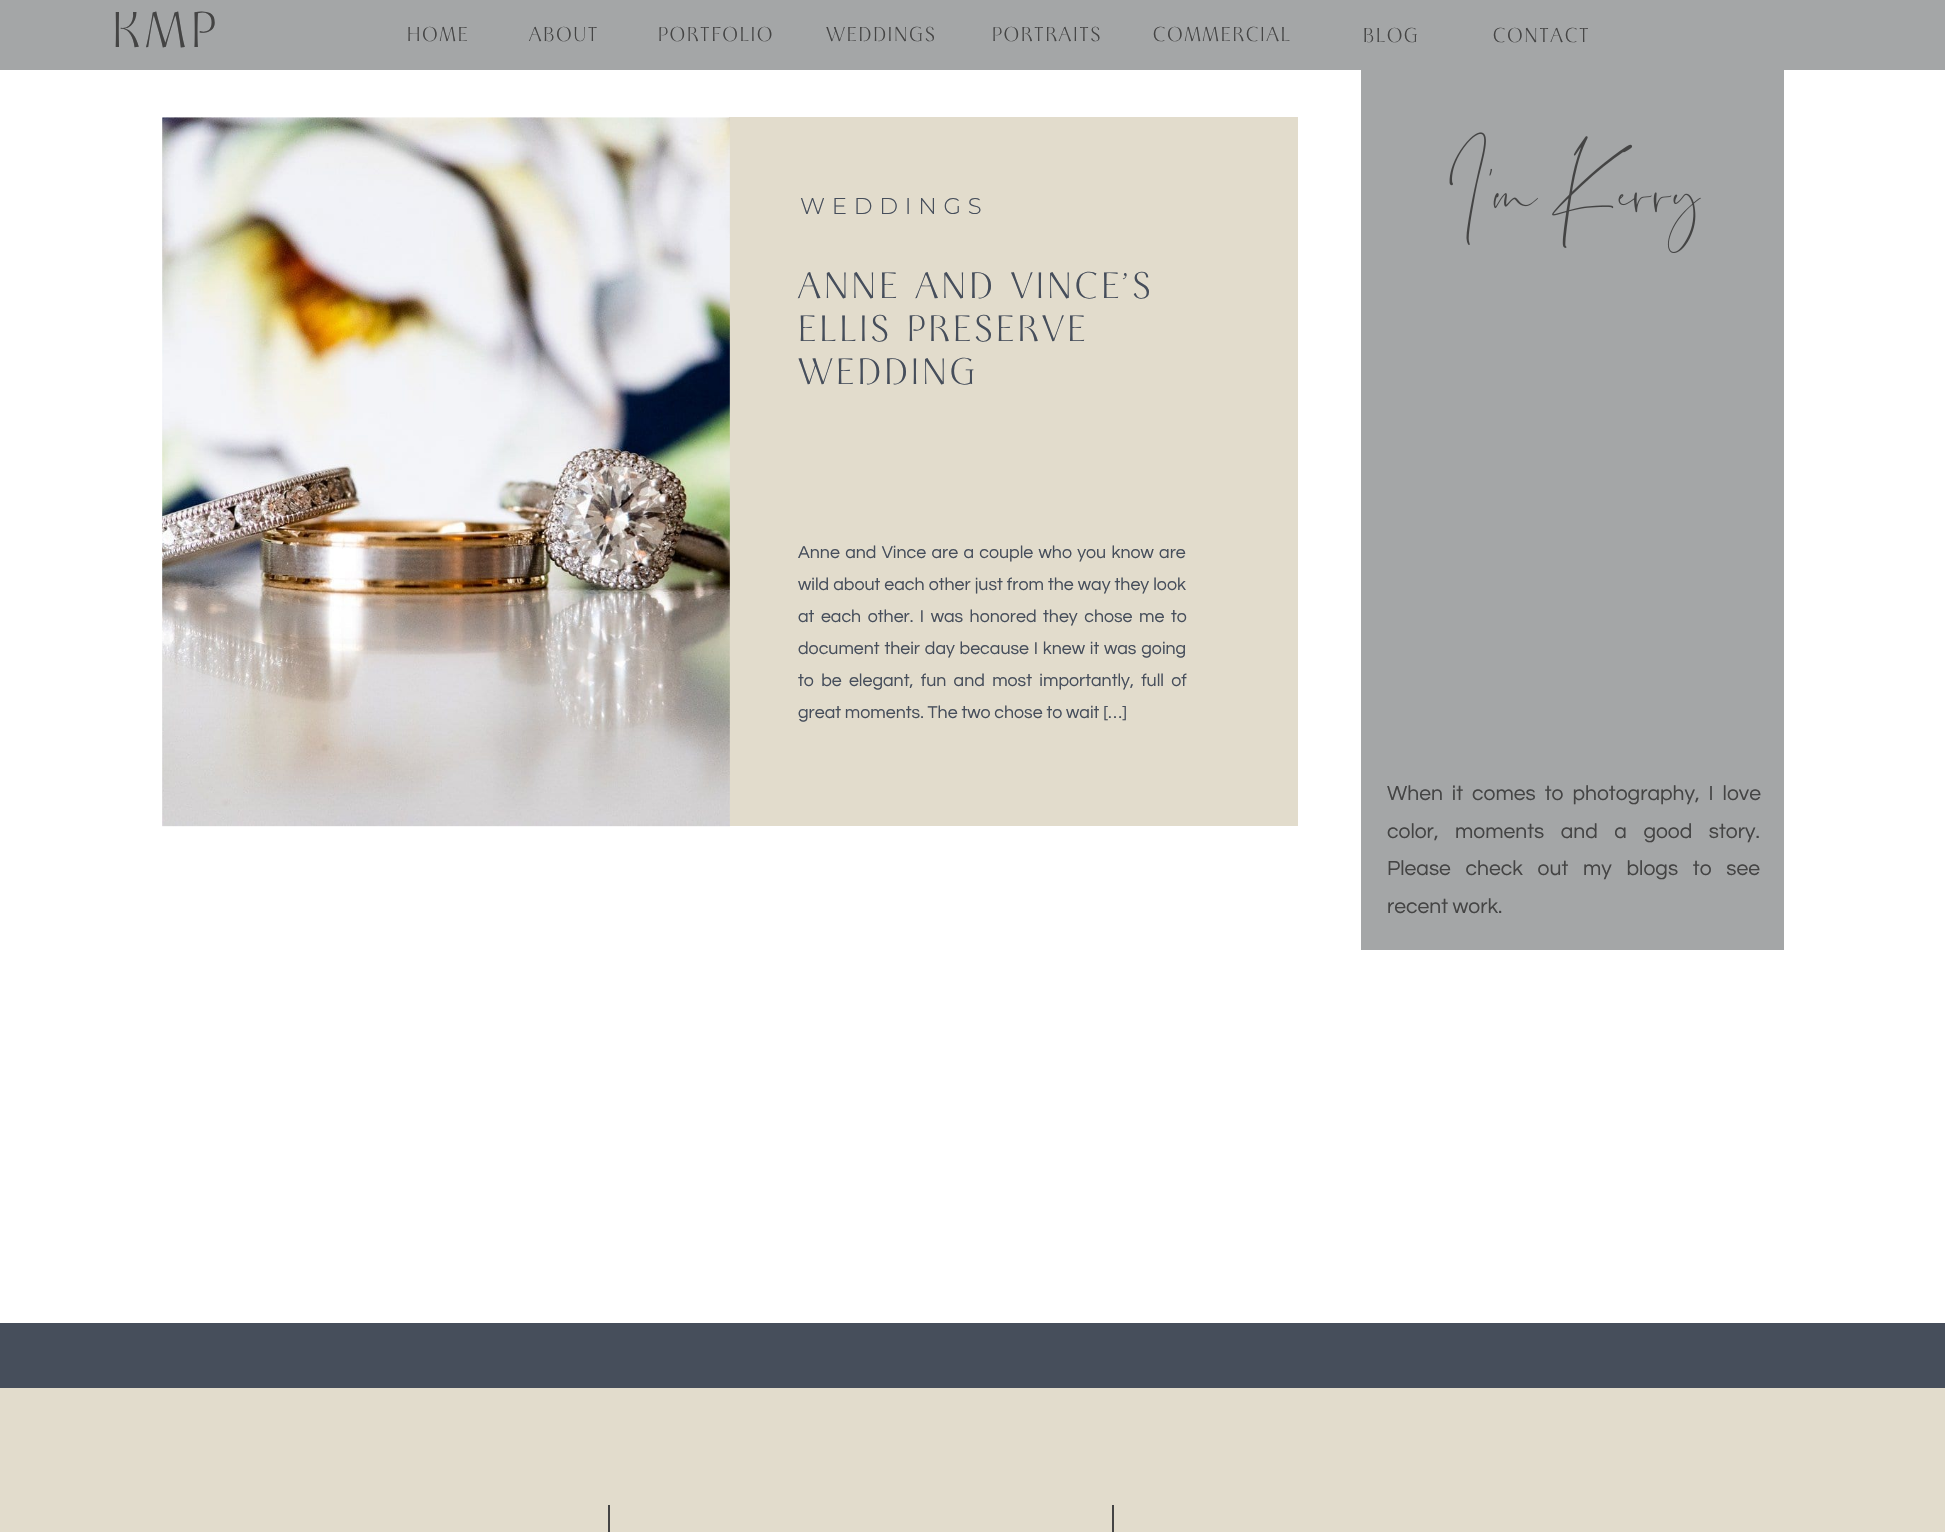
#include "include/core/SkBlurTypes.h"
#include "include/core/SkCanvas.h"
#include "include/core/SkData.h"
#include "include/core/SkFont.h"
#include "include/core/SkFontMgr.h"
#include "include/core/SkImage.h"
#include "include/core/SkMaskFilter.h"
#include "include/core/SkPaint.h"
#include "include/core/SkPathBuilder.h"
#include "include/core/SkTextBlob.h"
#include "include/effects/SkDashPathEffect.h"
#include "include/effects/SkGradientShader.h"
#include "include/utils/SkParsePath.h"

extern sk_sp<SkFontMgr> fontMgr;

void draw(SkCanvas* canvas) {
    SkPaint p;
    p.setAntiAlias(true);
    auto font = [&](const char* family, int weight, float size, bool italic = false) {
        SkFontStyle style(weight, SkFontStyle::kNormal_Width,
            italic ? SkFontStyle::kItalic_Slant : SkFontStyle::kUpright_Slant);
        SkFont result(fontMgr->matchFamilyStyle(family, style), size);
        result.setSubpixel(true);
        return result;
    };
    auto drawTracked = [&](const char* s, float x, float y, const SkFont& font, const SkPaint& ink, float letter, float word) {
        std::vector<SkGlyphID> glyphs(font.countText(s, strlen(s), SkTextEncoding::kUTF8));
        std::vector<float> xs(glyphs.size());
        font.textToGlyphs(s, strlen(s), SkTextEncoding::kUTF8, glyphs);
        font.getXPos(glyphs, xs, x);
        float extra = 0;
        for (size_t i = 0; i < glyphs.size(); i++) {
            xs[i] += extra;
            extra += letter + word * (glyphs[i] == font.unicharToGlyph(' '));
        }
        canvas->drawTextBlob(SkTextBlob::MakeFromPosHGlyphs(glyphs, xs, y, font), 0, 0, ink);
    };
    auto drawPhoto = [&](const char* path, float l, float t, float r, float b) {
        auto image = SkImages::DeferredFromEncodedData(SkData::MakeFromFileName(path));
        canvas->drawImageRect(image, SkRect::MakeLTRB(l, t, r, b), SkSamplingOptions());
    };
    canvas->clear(0xFFFFFFFF);
    p.setColor(0xFFA4A6A7);
    canvas->drawRect(SkRect::MakeLTRB(0, 0, 1945, 70), p);
    auto font1 = font("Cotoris", 400, 49);
    p.setColor(0xFF444444);
    drawTracked("KMP", 112, 47, font1, p, 5, 0);
    auto font2 = font("Cotoris", 400, 19.5f);
    {
        const struct { const char* s; float x, y; } items[] = {
            {"HOME", 407, 41},
            {"ABOUT", 529, 41},
            {"PORTFOLIO", 658, 41},
            {"WEDDINGS", 826, 41},
            {"PORTRAITS", 992, 41},
            {"COMMERCIAL", 1153, 41},
            {"BLOG", 1363, 42},
            {"CONTACT", 1493, 42},
        };
        for (auto [s, x, y] : items) {
            drawTracked(s, x, y, font2, p, 2, 0);
        }
    }
    p.setColor(0xFFE2DCCC);
    canvas->drawRect(SkRect::MakeLTRB(729, 117, 1298, 826), p);
    drawPhoto("media/1.png", 162, 117, 730, 827);
    auto font3 = font("Montserrat", 100, 22.75f);
    p.setColor(0xFF464E5B);
    drawTracked("WEDDINGS", 800, 214, font3, p, 6.75f, 0);
    auto font4 = font("Cotoris", 400, 35.75f);
    {
        const struct { const char* s; float x, y; } items[] = {
            {"ANNE AND VINCE’S", 798, 298},
            {"ELLIS PRESERVE", 798, 341},
            {"WEDDING", 798, 384},
        };
        for (auto [s, x, y] : items) {
            drawTracked(s, x, y, font4, p, 3.6f, 0);
        }
    }
    auto font5 = font("Questrial", 400, 17.8f);
    drawTracked("Anne and Vince are a couple who you know are", 798, 558, font5, p, 0, 1.5f);
    drawTracked("wild about each other just from the way they look", 798, 590, font5, p, 0, 0.25f);
    drawTracked("at each other. I was honored they chose me to", 798, 622, font5, p, 0, 2.75f);
    drawTracked("document their day because I knew it was going", 798, 654, font5, p, 0, 1);
    drawTracked("to be elegant, fun and most importantly, full of", 798, 686, font5, p, 0, 3.5f);
    canvas->drawString("great moments. The two chose to wait […]", 798, 718, font5, p);
    p.setColor(0xFFA4A6A7);
    canvas->drawRect(SkRect::MakeLTRB(1361, 70, 1784, 950), p);
    drawPhoto("media/2.png", 1449, 132, 1701, 253);
    auto font6 = font("Questrial", 400, 21.1f);
    p.setColor(0xFF444444);
    drawTracked("When it comes to photography, I love", 1387, 800, font6, p, 0, 4.5f);
    drawTracked("color, moments and a good story.", 1387, 838, font6, p, 0, 12);
    drawTracked("Please check out my blogs to see", 1387, 875, font6, p, 0, 10.25f);
    canvas->drawString("recent work.", 1387, 913, font6, p);
    {
        const struct { float l, t, r, b; SkColor color; } items[] = {
            {0, 1323, 1945, 1388, 0xFF464E5B},
            {0, 1388, 1945, 1532, 0xFFE2DCCC},
            {608, 1505, 610, 1532, 0xFF444444},
            {1112, 1505, 1114, 1532, 0xFF444444},
        };
        for (auto [l, t, r, b, color] : items) {
            p.setColor(color);
            canvas->drawRect(SkRect::MakeLTRB(l, t, r, b), p);
        }
    }
}
